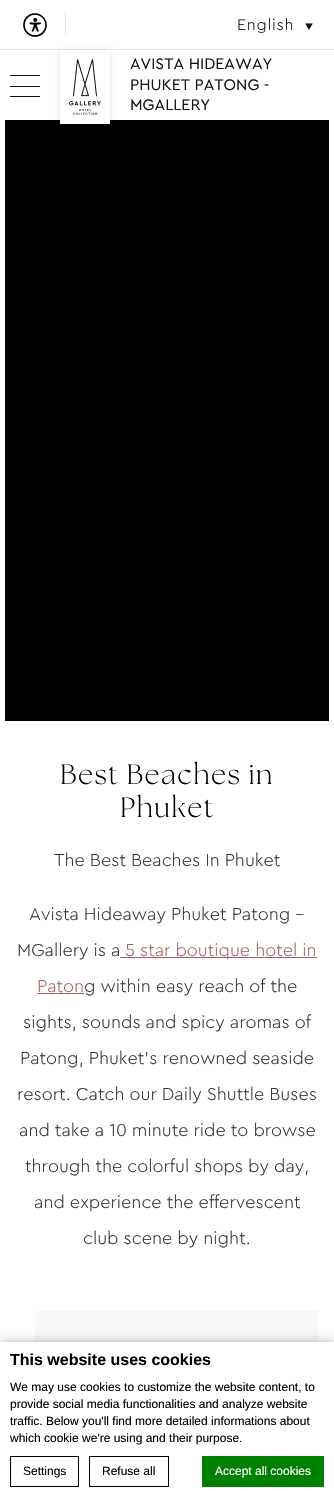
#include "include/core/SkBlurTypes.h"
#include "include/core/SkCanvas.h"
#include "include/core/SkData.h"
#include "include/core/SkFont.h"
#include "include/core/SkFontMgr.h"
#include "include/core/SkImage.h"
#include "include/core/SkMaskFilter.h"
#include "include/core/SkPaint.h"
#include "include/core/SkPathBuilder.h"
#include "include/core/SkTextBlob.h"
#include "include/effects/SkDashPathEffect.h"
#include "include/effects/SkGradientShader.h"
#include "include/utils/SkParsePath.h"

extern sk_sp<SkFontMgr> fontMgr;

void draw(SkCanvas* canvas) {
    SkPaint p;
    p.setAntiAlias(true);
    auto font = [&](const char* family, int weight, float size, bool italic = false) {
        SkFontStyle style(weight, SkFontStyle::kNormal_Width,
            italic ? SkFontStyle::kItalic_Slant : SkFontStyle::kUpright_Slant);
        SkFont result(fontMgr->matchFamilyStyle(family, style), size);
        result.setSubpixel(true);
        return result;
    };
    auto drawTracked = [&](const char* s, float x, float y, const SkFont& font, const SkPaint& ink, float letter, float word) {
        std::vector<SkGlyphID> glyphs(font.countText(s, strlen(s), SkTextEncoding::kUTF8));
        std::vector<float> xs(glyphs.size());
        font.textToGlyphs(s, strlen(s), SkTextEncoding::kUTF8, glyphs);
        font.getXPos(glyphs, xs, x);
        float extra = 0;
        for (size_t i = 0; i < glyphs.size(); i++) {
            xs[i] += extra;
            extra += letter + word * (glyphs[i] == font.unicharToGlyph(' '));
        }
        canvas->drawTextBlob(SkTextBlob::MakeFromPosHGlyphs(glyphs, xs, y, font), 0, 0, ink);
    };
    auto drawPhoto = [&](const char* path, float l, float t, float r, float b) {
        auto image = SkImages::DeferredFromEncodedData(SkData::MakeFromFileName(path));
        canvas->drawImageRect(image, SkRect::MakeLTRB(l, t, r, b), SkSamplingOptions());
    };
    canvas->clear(0xFFFFFFFF);
    p.setColor(0xFFECE8DE);
    canvas->drawRect(SkRect::MakeLTRB(0, 49, 334, 50), p);
    drawPhoto("media/1.png", 23, 13, 47, 37);
    canvas->drawRect(SkRect::MakeLTRB(65, 12, 66, 37), p);
    auto font1 = font("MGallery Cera", 300, 16);
    p.setColor(0xFF0A1317);
    drawTracked("English", 237, 30, font1, p, 0.75f, 0);
    auto font2 = font("MGallery Cera", 300, 15);
    drawTracked("▾", 305, 30, font2, p, 0.75f, 0);
    {
        const struct { float l, t, r, b; SkColor color; } items[] = {
            {10, 75, 40, 76, 0xFF0A1317},
            {10, 96, 40, 97, 0xFF0A1317},
            {10, 86, 40, 87, 0xFF0A1317},
            {5, 120, 329, 721, 0xFF000000},
        };
        for (auto [l, t, r, b, color] : items) {
            p.setColor(color);
            canvas->drawRect(SkRect::MakeLTRB(l, t, r, b), p);
        }
    }
    p.setColor(0x1A000000);
    p.setMaskFilter(SkMaskFilter::MakeBlur(kNormal_SkBlurStyle, 2.5f));
    canvas->drawRect(SkRect::MakeLTRB(60, 50, 110, 124), p);
    p.setMaskFilter(nullptr);
    p.setColor(0xFFFFFFFF);
    canvas->drawRect(SkRect::MakeLTRB(60, 50, 110, 124), p);
    drawPhoto("media/2.png", 69, 59, 101, 115);
    auto font3 = font("MGallery Cera", 400, 16);
    p.setColor(0xFF0A1317);
    {
        const struct { const char* s; float x, y; } items[] = {
            {"AVISTA HIDEAWAY", 130, 69},
            {"PHUKET PATONG -", 130, 90},
            {"MGALLERY", 130, 110},
        };
        for (auto [s, x, y] : items) {
            canvas->drawString(s, x, y, font3, p);
        }
    }
    auto font4 = font("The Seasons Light", 300, 28);
    p.setColor(0xFF000000);
    drawTracked("Best Beaches in", 60, 784, font4, p, 1.4f, 0);
    drawTracked("Phuket", 120, 817, font4, p, 1.4f, 0);
    auto font5 = font("MGallery Cera", 300, 18);
    p.setColor(0xFF333333);
    {
        const struct { const char* s; float x, y; } items[] = {
            {"The Best Beaches In Phuket", 54, 866},
            {"Avista Hideaway Phuket Patong –", 29, 920},
            {"MGallery is a", 17, 956},
        };
        for (auto [s, x, y] : items) {
            canvas->drawString(s, x, y, font5, p);
        }
    }
    p.setColor(0xFFA36159);
    canvas->drawRect(SkRect::MakeLTRB(120, 957, 317, 958), p);
    canvas->drawString("5 star boutique hotel in", 125, 956, font5, p);
    canvas->drawString("Paton", 37, 992, font5, p);
    canvas->drawRect(SkRect::MakeLTRB(37, 993, 84, 994), p);
    p.setColor(0xFF333333);
    {
        const struct { const char* s; float x, y; } items[] = {
            {"g within easy reach of the", 84, 992},
            {"sights, sounds and spicy aromas of", 23, 1028},
            {"Patong, Phuket’s renowned seaside", 20, 1064},
            {"resort. Catch our Daily Shuttle Buses", 17, 1100},
            {"and take a 10 minute ride to browse", 19, 1136},
            {"through the colorful shops by day,", 25, 1172},
            {"and experience the effervescent", 34, 1208},
            {"club scene by night.", 83, 1244},
        };
        for (auto [s, x, y] : items) {
            canvas->drawString(s, x, y, font5, p);
        }
    }
    p.setColor(0xFFF8F8F8);
    canvas->drawRect(SkRect::MakeLTRB(35, 1311, 319, 1342), p);
    p.setColor(0x4D000000);
    p.setMaskFilter(SkMaskFilter::MakeBlur(kNormal_SkBlurStyle, 5));
    canvas->drawRect(SkRect::MakeLTRB(0, 1342, 334, 1502), p);
    p.setMaskFilter(nullptr);
    p.setColor(0xFFFFFFFF);
    canvas->drawRect(SkRect::MakeLTRB(0, 1342, 334, 1502), p);
    auto font6 = font("Liberation Sans", 700, 16);
    p.setColor(0xFF000000);
    canvas->drawString("This website uses cookies", 10, 1365, font6, p);
    auto font7 = font("Liberation Sans", 400, 12);
    {
        const struct { const char* s; float x, y; } items[] = {
            {"We may use cookies to customize the website content, to", 10, 1391},
            {"provide social media functionalities and analyze website", 10, 1408},
            {"traffic. Below you'll find more detailed informations about", 10, 1425},
            {"which cookie we're using and their purpose.", 10, 1442},
        };
        for (auto [s, x, y] : items) {
            canvas->drawString(s, x, y, font7, p);
        }
    }
    p.setStyle(SkPaint::kStroke_Style);
    p.setStrokeWidth(1);
    canvas->drawRect(SkRect::MakeLTRB(10.5f, 1456.5f, 78.5f, 1486.5f), p);
    p.setStyle(SkPaint::kFill_Style);
    canvas->drawString("Settings", 23, 1475, font7, p);
    p.setStyle(SkPaint::kStroke_Style);
    canvas->drawRect(SkRect::MakeLTRB(89.5f, 1456.5f, 168.5f, 1486.5f), p);
    p.setStyle(SkPaint::kFill_Style);
    canvas->drawString("Refuse all", 102, 1475, font7, p);
    p.setColor(0xFF008000);
    canvas->drawRect(SkRect::MakeLTRB(202, 1456, 324, 1487), p);
    p.setColor(0xFFFFFFFF);
    canvas->drawString("Accept all cookies", 215, 1475, font7, p);
}
